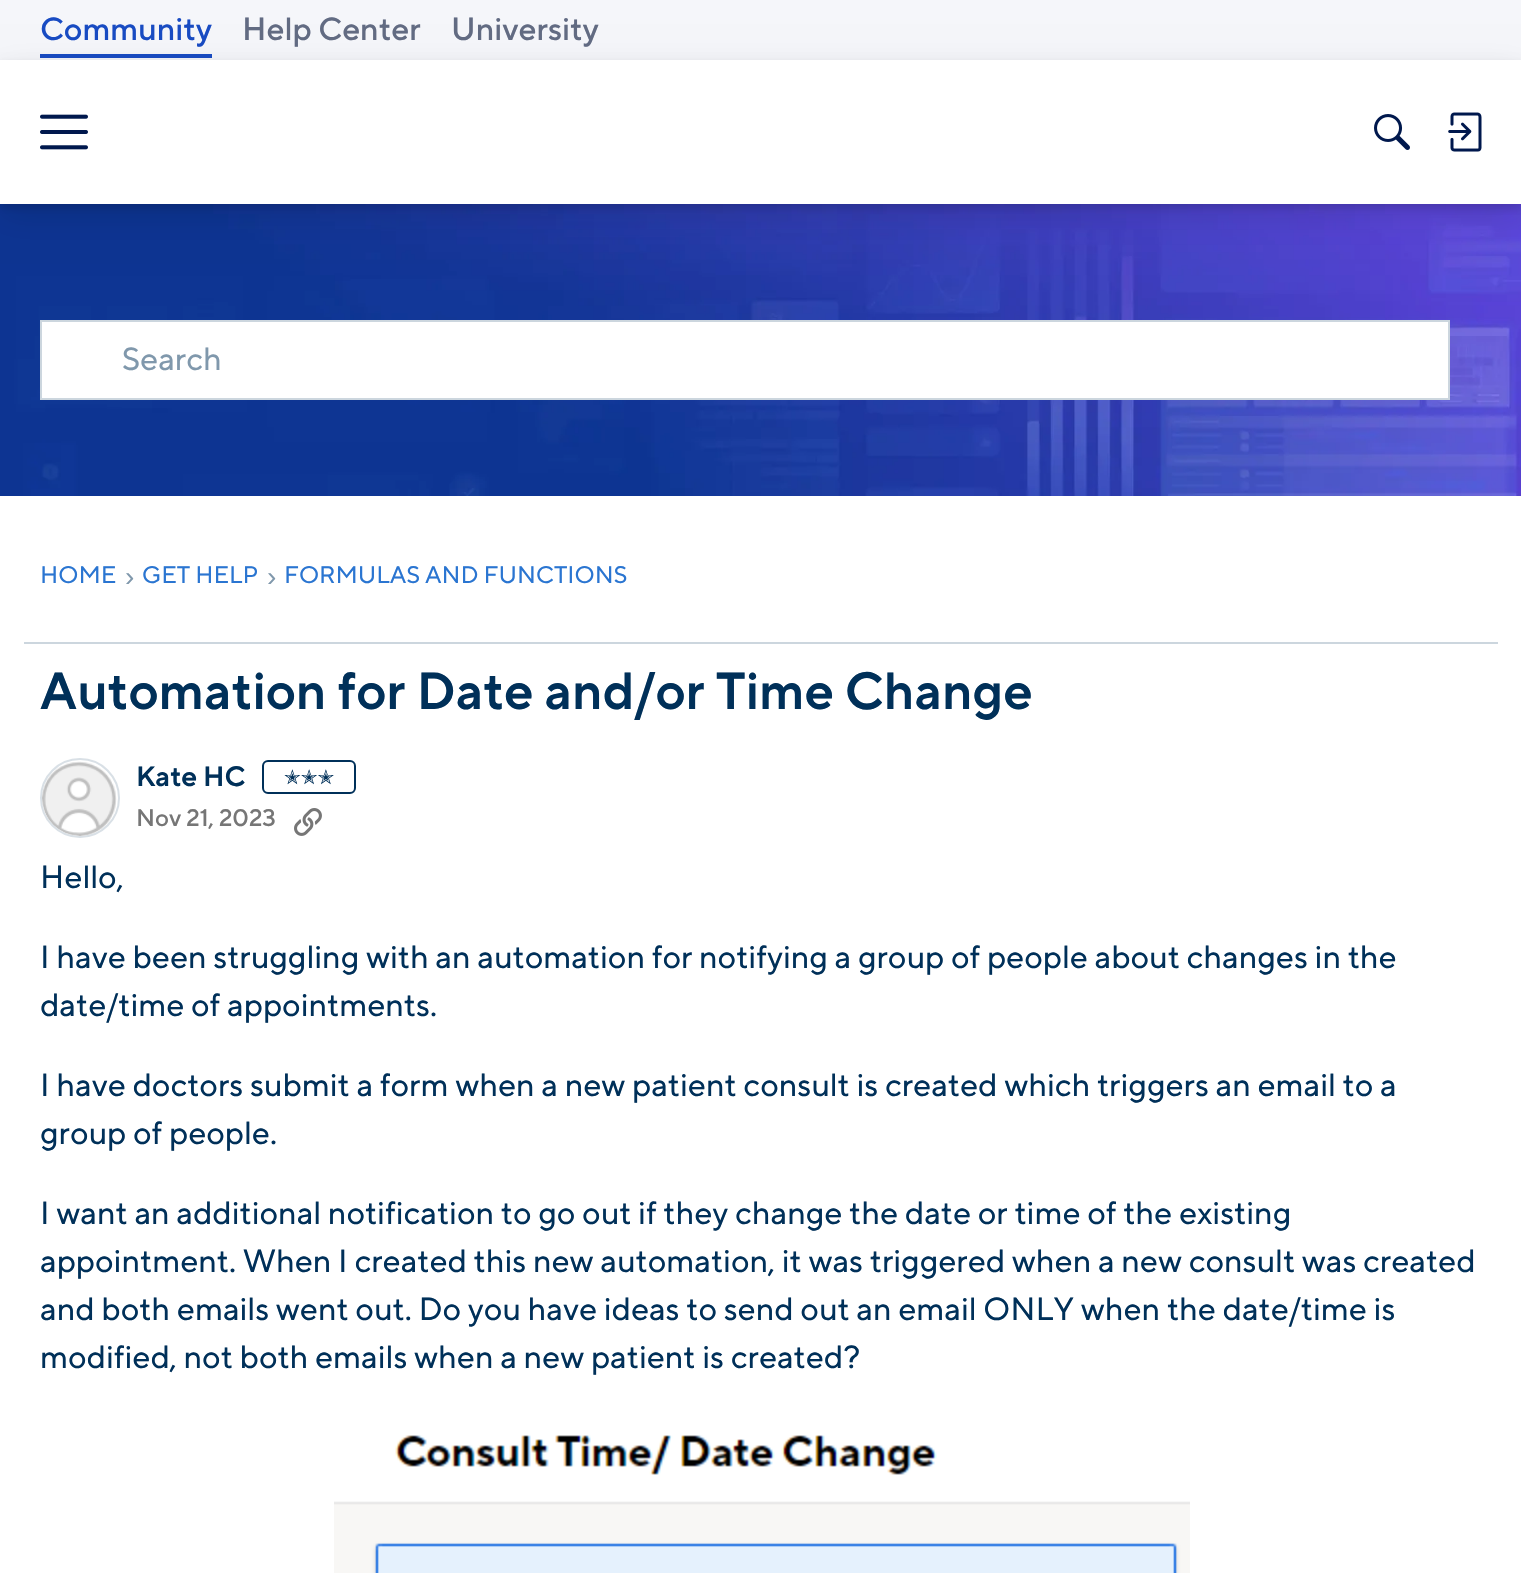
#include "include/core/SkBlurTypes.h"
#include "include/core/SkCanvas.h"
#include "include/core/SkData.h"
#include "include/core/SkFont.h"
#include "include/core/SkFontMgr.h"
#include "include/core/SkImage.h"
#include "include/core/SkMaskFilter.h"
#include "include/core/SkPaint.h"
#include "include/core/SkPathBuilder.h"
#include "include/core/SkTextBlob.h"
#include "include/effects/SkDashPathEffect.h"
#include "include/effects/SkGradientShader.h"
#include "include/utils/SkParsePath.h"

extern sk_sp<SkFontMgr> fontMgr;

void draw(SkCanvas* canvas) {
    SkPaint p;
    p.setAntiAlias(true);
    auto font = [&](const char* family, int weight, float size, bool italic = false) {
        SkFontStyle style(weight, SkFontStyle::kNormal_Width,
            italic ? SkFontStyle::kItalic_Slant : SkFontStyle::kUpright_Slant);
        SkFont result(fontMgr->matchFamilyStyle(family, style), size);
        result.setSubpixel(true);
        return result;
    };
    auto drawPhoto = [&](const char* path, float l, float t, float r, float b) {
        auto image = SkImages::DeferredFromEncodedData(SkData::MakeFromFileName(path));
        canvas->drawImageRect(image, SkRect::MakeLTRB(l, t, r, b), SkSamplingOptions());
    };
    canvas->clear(0xFFFFFFFF);
    p.setColor(0xFFF5F6FA);
    canvas->drawRect(SkRect::MakeLTRB(0, 0, 1521, 60), p);
    auto font1 = font("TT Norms", 500, 32);
    p.setColor(0xFF184BC3);
    canvas->drawString("Community", 40, 40, font1, p);
    canvas->drawRect(SkRect::MakeLTRB(40, 54, 212, 58), p);
    p.setColor(0xFF626B83);
    canvas->drawString("Help Center", 242, 40, font1, p);
    canvas->drawString("University", 451, 40, font1, p);
    drawPhoto("media/4.png", 0, 204, 1521, 496);
    p.setColor(0x1A000000);
    p.setMaskFilter(SkMaskFilter::MakeBlur(kNormal_SkBlurStyle, 16));
    canvas->drawRect(SkRect::MakeLTRB(0, 72, 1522, 216), p);
    p.setMaskFilter(nullptr);
    p.setColor(0x1F000000);
    p.setMaskFilter(SkMaskFilter::MakeBlur(kNormal_SkBlurStyle, 4));
    canvas->drawRect(SkRect::MakeLTRB(0, 64, 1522, 208), p);
    p.setMaskFilter(nullptr);
    p.setColor(0xFFFFFFFF);
    canvas->drawRect(SkRect::MakeLTRB(0, 60, 1521, 204), p);
    drawPhoto("media/1.png", 40, 114, 88, 150);
    drawPhoto("media/2.png", 1374, 114, 1410, 150);
    drawPhoto("media/3.png", 1448, 112, 1482, 152);
    canvas->drawRect(SkRect::MakeLTRB(41, 321, 1449, 399), p);
    p.setStyle(SkPaint::kStroke_Style);
    p.setStrokeWidth(2);
    p.setColor(0xFFCCD6DE);
    canvas->drawRect(SkRect::MakeLTRB(41, 321, 1449, 399), p);
    auto font2 = font("TT Norms", 400, 32);
    p.setStyle(SkPaint::kFill_Style);
    p.setColor(0xFF8098AC);
    canvas->drawString("Search", 122, 370, font2, p);
    auto font3 = font("TT Norms", 400, 24);
    p.setColor(0xFF2A75D1);
    canvas->drawString("HOME", 40, 583, font3, p);
    auto font4 = font("Liberation Sans", 400, 28);
    p.setColor(0xFF8098AC);
    canvas->drawString("›", 125, 586, font4, p);
    p.setColor(0xFF2A75D1);
    canvas->drawString("GET HELP", 142, 583, font3, p);
    p.setColor(0xFF8098AC);
    canvas->drawString("›", 267, 586, font4, p);
    p.setColor(0xFF2A75D1);
    canvas->drawString("FORMULAS AND FUNCTIONS", 284, 583, font3, p);
    p.setColor(0xFFCCD6DE);
    canvas->drawRect(SkRect::MakeLTRB(24, 642, 1498, 644), p);
    auto font5 = font("TT Norms", 600, 52);
    p.setColor(0xFF003059);
    canvas->drawString("Automation for Date and/or Time Change", 40, 709, font5, p);
    p.setStyle(SkPaint::kStroke_Style);
    p.setColor(0xFFD9E0E6);
    canvas->drawCircle(80, 798, 39, p);
    drawPhoto("media/5.png", 42, 761, 117, 836);
    auto font6 = font("TT Norms", 600, 28);
    p.setStyle(SkPaint::kFill_Style);
    p.setColor(0xFF003059);
    canvas->drawString("Kate HC", 136, 786, font6, p);
    p.setStyle(SkPaint::kStroke_Style);
    canvas->drawRoundRect(SkRect::MakeLTRB(263, 761, 355, 793), 5, 5, p);
    auto font7 = font("DejaVu Sans", 400, 20);
    p.setStyle(SkPaint::kFill_Style);
    canvas->drawString("✭✭✭", 284, 784, font7, p);
    auto font8 = font("TT Norms", 500, 24);
    p.setColor(0xFF767676);
    canvas->drawString("Nov 21, 2023", 136, 826, font8, p);
    drawPhoto("media/6.png", 294, 808, 322, 836);
    p.setColor(0xFF003059);
    {
        const struct { const char* s; float x, y; } items[] = {
            {"Hello,", 40, 888},
            {"I have been struggling with an automation for notifying a group of people about changes in the", 40, 968},
            {"date/time of appointments.", 40, 1016},
            {"I have doctors submit a form when a new patient consult is created which triggers an email to a", 40, 1096},
            {"group of people.", 40, 1144},
            {"I want an additional notification to go out if they change the date or time of the existing", 40, 1224},
            {"appointment. When I created this new automation, it was triggered when a new consult was created", 40, 1272},
            {"and both emails went out. Do you have ideas to send out an email ONLY when the date/time is", 40, 1320},
            {"modified, not both emails when a new patient is created?", 40, 1368},
        };
        for (auto [s, x, y] : items) {
            canvas->drawString(s, x, y, font2, p);
        }
    }
    drawPhoto("media/7.png", 334, 1435, 1190, 1573);
}
